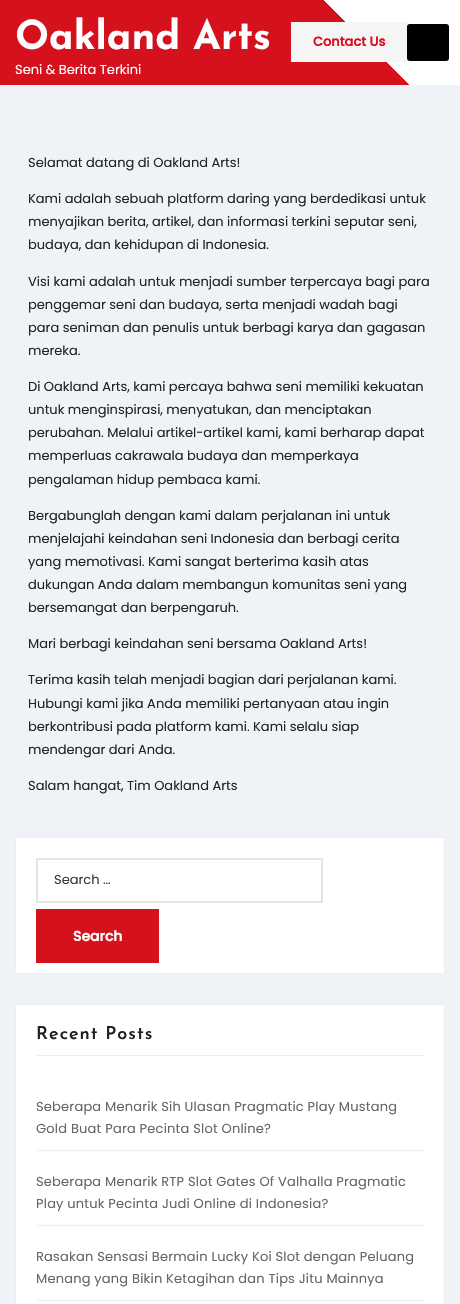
#include "include/core/SkBlurTypes.h"
#include "include/core/SkCanvas.h"
#include "include/core/SkData.h"
#include "include/core/SkFont.h"
#include "include/core/SkFontMgr.h"
#include "include/core/SkImage.h"
#include "include/core/SkMaskFilter.h"
#include "include/core/SkPaint.h"
#include "include/core/SkPathBuilder.h"
#include "include/core/SkTextBlob.h"
#include "include/effects/SkDashPathEffect.h"
#include "include/effects/SkGradientShader.h"
#include "include/utils/SkParsePath.h"

extern sk_sp<SkFontMgr> fontMgr;

void draw(SkCanvas* canvas) {
    SkPaint p;
    p.setAntiAlias(true);
    auto font = [&](const char* family, int weight, float size, bool italic = false) {
        SkFontStyle style(weight, SkFontStyle::kNormal_Width,
            italic ? SkFontStyle::kItalic_Slant : SkFontStyle::kUpright_Slant);
        SkFont result(fontMgr->matchFamilyStyle(family, style), size);
        result.setSubpixel(true);
        return result;
    };
    auto drawTracked = [&](const char* s, float x, float y, const SkFont& font, const SkPaint& ink, float letter, float word) {
        std::vector<SkGlyphID> glyphs(font.countText(s, strlen(s), SkTextEncoding::kUTF8));
        std::vector<float> xs(glyphs.size());
        font.textToGlyphs(s, strlen(s), SkTextEncoding::kUTF8, glyphs);
        font.getXPos(glyphs, xs, x);
        float extra = 0;
        for (size_t i = 0; i < glyphs.size(); i++) {
            xs[i] += extra;
            extra += letter + word * (glyphs[i] == font.unicharToGlyph(' '));
        }
        canvas->drawTextBlob(SkTextBlob::MakeFromPosHGlyphs(glyphs, xs, y, font), 0, 0, ink);
    };
    canvas->clear(0xFFFFFFFF);
    {
        const SkColor colors[] = {0xFFD6111E, 0xFFFFFFFF};
        const float stops[] = {0.75f, 0.75f};
        const SkPoint ends[] = {{94, 179}, {366, -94}};
        p.setShader(SkGradientShader::MakeLinear(ends, colors, stops, 2, SkTileMode::kClamp));
        p.setAlpha(255);
    }
    canvas->drawRect(SkRect::MakeLTRB(0, 0, 409, 85), p);
    auto font1 = font("Josefin Sans", 700, 40);
    p.setShader(nullptr);
    p.setColor(0xFFFFFFFF);
    canvas->drawString("Oakland Arts", 15, 49, font1, p);
    auto font2 = font("Poppins", 400, 13);
    canvas->drawString("Seni & Berita Terkini", 15, 74, font2, p);
    p.setColor(0xFFF5F5F5);
    canvas->drawRect(SkRect::MakeLTRB(291, 22, 407, 62), p);
    auto font3 = font("Poppins", 700, 13);
    p.setColor(0xFFD6111E);
    canvas->drawString("Contact Us", 313, 46, font3, p);
    p.setColor(0xFF000000);
    canvas->drawRoundRect(SkRect::MakeLTRB(407, 24, 449, 61), 3, 3, p);
    p.setColor(0xFFEFF2F7);
    canvas->drawRect(SkRect::MakeLTRB(0, 85, 460, 1304), p);
    p.setColor(0xFF212529);
    {
        const struct { const char* s; float x, y; } items[] = {
            {"Selamat datang di Oakland Arts!", 28, 167},
            {"Kami adalah sebuah platform daring yang berdedikasi untuk", 28, 203},
            {"menyajikan berita, artikel, dan informasi terkini seputar seni,", 28, 226},
            {"budaya, dan kehidupan di Indonesia.", 28, 249},
            {"Visi kami adalah untuk menjadi sumber terpercaya bagi para", 28, 286},
            {"penggemar seni dan budaya, serta menjadi wadah bagi", 28, 309},
            {"para seniman dan penulis untuk berbagi karya dan gagasan", 28, 332},
            {"mereka.", 28, 355},
            {"Di Oakland Arts, kami percaya bahwa seni memiliki kekuatan", 28, 391},
            {"untuk menginspirasi, menyatukan, dan menciptakan", 28, 414},
            {"perubahan. Melalui artikel-artikel kami, kami berharap dapat", 28, 437},
            {"memperluas cakrawala budaya dan memperkaya", 28, 460},
            {"pengalaman hidup pembaca kami.", 28, 484},
            {"Bergabunglah dengan kami dalam perjalanan ini untuk", 28, 520},
            {"menjelajahi keindahan seni Indonesia dan berbagi cerita", 28, 543},
            {"yang memotivasi. Kami sangat berterima kasih atas", 28, 566},
            {"dukungan Anda dalam membangun komunitas seni yang", 28, 589},
            {"bersemangat dan berpengaruh.", 28, 612},
            {"Mari berbagi keindahan seni bersama Oakland Arts!", 28, 648},
            {"Terima kasih telah menjadi bagian dari perjalanan kami.", 28, 684},
            {"Hubungi kami jika Anda memiliki pertanyaan atau ingin", 28, 708},
            {"berkontribusi pada platform kami. Kami selalu siap", 28, 731},
            {"mendengar dari Anda.", 28, 754},
            {"Salam hangat, Tim Oakland Arts", 28, 790},
        };
        for (auto [s, x, y] : items) {
            canvas->drawString(s, x, y, font2, p);
        }
    }
    p.setColor(0xFFFFFFFF);
    canvas->drawRect(SkRect::MakeLTRB(15.5f, 837.5f, 444.5f, 973.5f), p);
    p.setStyle(SkPaint::kStroke_Style);
    p.setStrokeWidth(1);
    p.setColor(0xFFEEEEEE);
    canvas->drawRect(SkRect::MakeLTRB(15.5f, 837.5f, 444.5f, 973.5f), p);
    p.setStrokeWidth(2);
    p.setColor(0xFFE5E5E5);
    canvas->drawRect(SkRect::MakeLTRB(37, 859, 322, 902), p);
    p.setStyle(SkPaint::kFill_Style);
    p.setColor(0xFF463838);
    canvas->drawString("Search …", 54, 884, font2, p);
    p.setColor(0xFFD6111E);
    canvas->drawRect(SkRect::MakeLTRB(36, 909, 159, 963), p);
    auto font4 = font("Poppins", 700, 14);
    p.setColor(0xFFFFFFFF);
    canvas->drawString("Search", 73, 941, font4, p);
    canvas->drawRect(SkRect::MakeLTRB(15.5f, 1004.5f, 444.5f, 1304.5f), p);
    p.setStyle(SkPaint::kStroke_Style);
    p.setStrokeWidth(1);
    p.setColor(0xFFEEEEEE);
    canvas->drawRect(SkRect::MakeLTRB(15.5f, 1004.5f, 444.5f, 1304.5f), p);
    p.setStyle(SkPaint::kFill_Style);
    canvas->drawRect(SkRect::MakeLTRB(36, 1055, 424, 1056), p);
    auto font5 = font("Josefin Sans", 600, 18);
    p.setColor(0xFF212121);
    drawTracked("Recent Posts", 36, 1039, font5, p, 1, 0);
    p.setColor(0xFFEEEEEE);
    canvas->drawRect(SkRect::MakeLTRB(36, 1150, 424, 1151), p);
    p.setColor(0xFF666666);
    drawTracked("Seberapa Menarik Sih Ulasan Pragmatic Play Mustang", 36, 1111, font2, p, 0.2f, 0);
    drawTracked("Gold Buat Para Pecinta Slot Online?", 36, 1133, font2, p, 0.2f, 0);
    p.setColor(0xFFEEEEEE);
    canvas->drawRect(SkRect::MakeLTRB(36, 1225, 424, 1226), p);
    p.setColor(0xFF666666);
    drawTracked("Seberapa Menarik RTP Slot Gates Of Valhalla Pragmatic", 36, 1186, font2, p, 0.2f, 0);
    drawTracked("Play untuk Pecinta Judi Online di Indonesia?", 36, 1208, font2, p, 0.2f, 0);
    p.setColor(0xFFEEEEEE);
    canvas->drawRect(SkRect::MakeLTRB(36, 1300, 424, 1301), p);
    p.setColor(0xFF666666);
    drawTracked("Rasakan Sensasi Bermain Lucky Koi Slot dengan Peluang", 36, 1261, font2, p, 0.2f, 0);
    drawTracked("Menang yang Bikin Ketagihan dan Tips Jitu Mainnya", 36, 1283, font2, p, 0.2f, 0);
}
